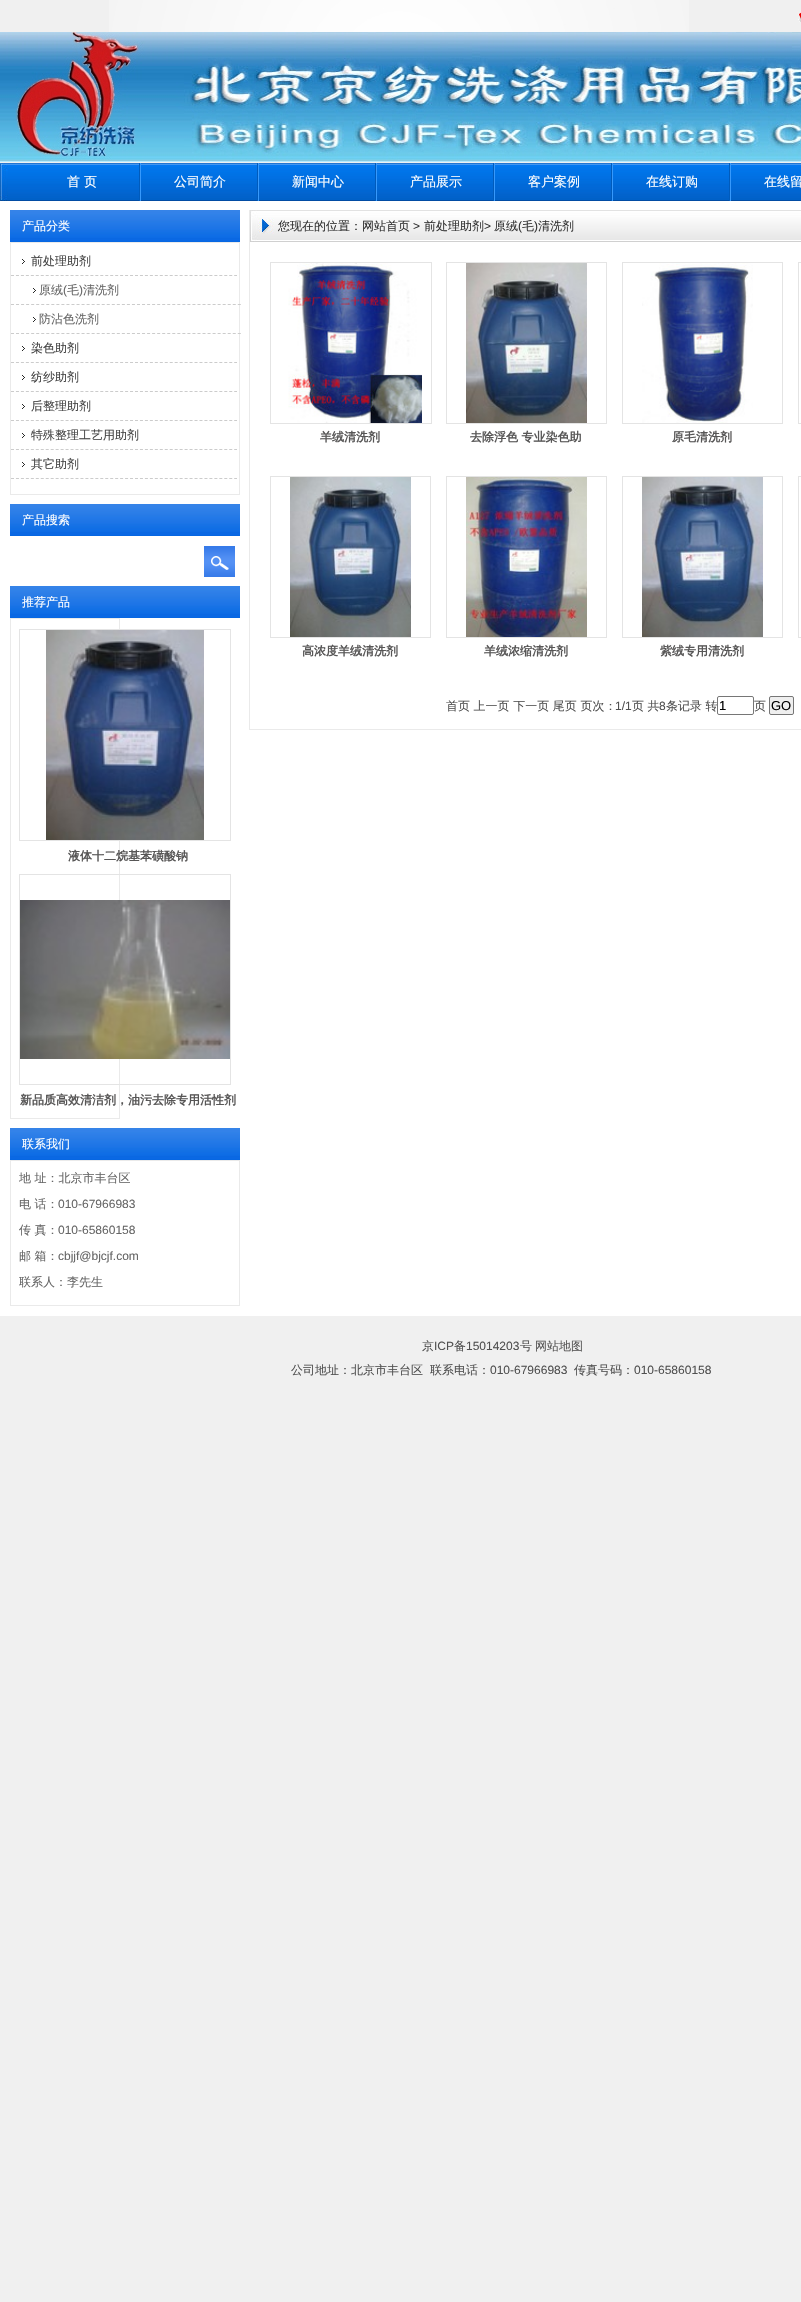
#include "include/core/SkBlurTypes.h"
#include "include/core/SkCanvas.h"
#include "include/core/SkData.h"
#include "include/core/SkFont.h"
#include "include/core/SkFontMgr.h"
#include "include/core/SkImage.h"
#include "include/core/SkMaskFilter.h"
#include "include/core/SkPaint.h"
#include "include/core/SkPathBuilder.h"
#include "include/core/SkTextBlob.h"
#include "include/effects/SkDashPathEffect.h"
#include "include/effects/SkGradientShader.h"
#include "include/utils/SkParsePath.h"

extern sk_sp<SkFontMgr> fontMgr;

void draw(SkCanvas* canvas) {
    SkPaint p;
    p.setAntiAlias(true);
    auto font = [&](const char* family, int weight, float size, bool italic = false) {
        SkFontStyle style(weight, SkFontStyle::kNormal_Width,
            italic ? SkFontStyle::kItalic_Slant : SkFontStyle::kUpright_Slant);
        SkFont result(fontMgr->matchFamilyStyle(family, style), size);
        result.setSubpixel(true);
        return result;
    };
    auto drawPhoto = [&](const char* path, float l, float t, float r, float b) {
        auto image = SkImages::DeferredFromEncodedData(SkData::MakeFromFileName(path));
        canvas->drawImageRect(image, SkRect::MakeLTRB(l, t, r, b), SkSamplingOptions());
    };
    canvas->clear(0xFFF0F0F0);
    drawPhoto("media/1.png", 109, 0, 689, 32);
    drawPhoto("media/2.png", 798, 12, 801, 22);
    drawPhoto("media/3.png", 0, 32, 801, 162);
    drawPhoto("media/4.png", 0, 163, 801, 201);
    drawPhoto("media/5.png", 139, 163, 141, 201);
    auto font1 = font("WenQuanYi Zen Hei", 500, 13);
    p.setColor(0xFFFFFFFF);
    canvas->drawString("首 页", 67, 186, font1, p);
    drawPhoto("media/5.png", 257, 163, 259, 201);
    canvas->drawString("公司简介", 174, 186, font1, p);
    drawPhoto("media/5.png", 375, 163, 377, 201);
    canvas->drawString("新闻中心", 292, 186, font1, p);
    drawPhoto("media/5.png", 493, 163, 495, 201);
    canvas->drawString("产品展示", 410, 186, font1, p);
    drawPhoto("media/5.png", 611, 163, 613, 201);
    canvas->drawString("客户案例", 528, 186, font1, p);
    drawPhoto("media/5.png", 729, 163, 731, 201);
    canvas->drawString("在线订购", 646, 186, font1, p);
    canvas->drawString("在线留", 764, 186, font1, p);
    canvas->drawRect(SkRect::MakeLTRB(0, 201, 801, 1316), p);
    drawPhoto("media/6.png", 10, 210, 240, 242);
    auto font2 = font("WenQuanYi Zen Hei", 500, 12);
    canvas->drawString("产品分类", 22, 230, font2, p);
    p.setStyle(SkPaint::kStroke_Style);
    p.setStrokeWidth(1);
    p.setColor(0xFFEAEAEA);
    canvas->drawRect(SkRect::MakeLTRB(10.5f, 242.5f, 239.5f, 494.5f), p);
    drawPhoto("media/7.png", 22, 259, 25, 264);
    p.setColor(0xFFCCCCCC);
    p.setPathEffect(SkDashPathEffect::Make({{3, 1.96f}}, 0));
    canvas->drawPath(SkPathBuilder().moveTo(11, 275.5f).lineTo(237, 275.5f).detach(), p);
    p.setPathEffect(nullptr);
    p.setStyle(SkPaint::kFill_Style);
    p.setColor(0xFF434343);
    canvas->drawString("前处理助剂", 31, 265, font2, p);
    drawPhoto("media/7.png", 33, 288, 36, 293);
    p.setStyle(SkPaint::kStroke_Style);
    p.setColor(0xFFCCCCCC);
    p.setPathEffect(SkDashPathEffect::Make({{3, 2.04f}}, 0));
    canvas->drawPath(SkPathBuilder().moveTo(11, 304.5f).lineTo(241, 304.5f).detach(), p);
    p.setPathEffect(nullptr);
    p.setStyle(SkPaint::kFill_Style);
    p.setColor(0xFF666666);
    canvas->drawString("原绒", 39, 294, font2, p);
    auto font3 = font("Liberation Sans", 400, 12);
    canvas->drawString("(", 63, 294, font3, p);
    canvas->drawString("毛", 67, 294, font2, p);
    canvas->drawString(")", 79, 294, font3, p);
    canvas->drawString("清洗剂", 83, 294, font2, p);
    drawPhoto("media/7.png", 33, 317, 36, 322);
    p.setStyle(SkPaint::kStroke_Style);
    p.setColor(0xFFCCCCCC);
    p.setPathEffect(SkDashPathEffect::Make({{3, 2.04f}}, 0));
    canvas->drawPath(SkPathBuilder().moveTo(11, 333.5f).lineTo(241, 333.5f).detach(), p);
    p.setPathEffect(nullptr);
    p.setStyle(SkPaint::kFill_Style);
    p.setColor(0xFF666666);
    canvas->drawString("防沾色洗剂", 39, 323, font2, p);
    drawPhoto("media/7.png", 22, 346, 25, 351);
    p.setStyle(SkPaint::kStroke_Style);
    p.setColor(0xFFCCCCCC);
    p.setPathEffect(SkDashPathEffect::Make({{3, 1.96f}}, 0));
    canvas->drawPath(SkPathBuilder().moveTo(11, 362.5f).lineTo(237, 362.5f).detach(), p);
    p.setPathEffect(nullptr);
    p.setStyle(SkPaint::kFill_Style);
    p.setColor(0xFF434343);
    canvas->drawString("染色助剂", 31, 352, font2, p);
    drawPhoto("media/7.png", 22, 375, 25, 380);
    p.setStyle(SkPaint::kStroke_Style);
    p.setColor(0xFFCCCCCC);
    p.setPathEffect(SkDashPathEffect::Make({{3, 1.96f}}, 0));
    canvas->drawPath(SkPathBuilder().moveTo(11, 391.5f).lineTo(237, 391.5f).detach(), p);
    p.setPathEffect(nullptr);
    p.setStyle(SkPaint::kFill_Style);
    p.setColor(0xFF434343);
    canvas->drawString("纺纱助剂", 31, 381, font2, p);
    drawPhoto("media/7.png", 22, 404, 25, 409);
    p.setStyle(SkPaint::kStroke_Style);
    p.setColor(0xFFCCCCCC);
    p.setPathEffect(SkDashPathEffect::Make({{3, 1.96f}}, 0));
    canvas->drawPath(SkPathBuilder().moveTo(11, 420.5f).lineTo(237, 420.5f).detach(), p);
    p.setPathEffect(nullptr);
    p.setStyle(SkPaint::kFill_Style);
    p.setColor(0xFF434343);
    canvas->drawString("后整理助剂", 31, 410, font2, p);
    drawPhoto("media/7.png", 22, 433, 25, 438);
    p.setStyle(SkPaint::kStroke_Style);
    p.setColor(0xFFCCCCCC);
    p.setPathEffect(SkDashPathEffect::Make({{3, 1.96f}}, 0));
    canvas->drawPath(SkPathBuilder().moveTo(11, 449.5f).lineTo(237, 449.5f).detach(), p);
    p.setPathEffect(nullptr);
    p.setStyle(SkPaint::kFill_Style);
    p.setColor(0xFF434343);
    canvas->drawString("特殊整理工艺用助剂", 31, 439, font2, p);
    drawPhoto("media/7.png", 22, 462, 25, 467);
    p.setStyle(SkPaint::kStroke_Style);
    p.setColor(0xFFCCCCCC);
    p.setPathEffect(SkDashPathEffect::Make({{3, 1.96f}}, 0));
    canvas->drawPath(SkPathBuilder().moveTo(11, 478.5f).lineTo(237, 478.5f).detach(), p);
    p.setPathEffect(nullptr);
    p.setStyle(SkPaint::kFill_Style);
    p.setColor(0xFF434343);
    canvas->drawString("其它助剂", 31, 468, font2, p);
    drawPhoto("media/6.png", 10, 504, 240, 536);
    p.setColor(0xFFFFFFFF);
    canvas->drawString("产品搜索", 22, 524, font2, p);
    drawPhoto("media/8.png", 204, 546, 235, 577);
    drawPhoto("media/6.png", 10, 586, 240, 618);
    canvas->drawString("推荐产品", 22, 606, font2, p);
    p.setStyle(SkPaint::kStroke_Style);
    p.setColor(0xFFEAEAEA);
    canvas->drawRect(SkRect::MakeLTRB(10.5f, 618.5f, 119.5f, 1118.5f), p);
    p.setColor(0xFFE4E4E4);
    canvas->drawRect(SkRect::MakeLTRB(19.5f, 629.5f, 230.5f, 840.5f), p);
    drawPhoto("media/9.png", 46, 630, 204, 840);
    auto font4 = font("WenQuanYi Zen Hei", 700, 12);
    p.setStyle(SkPaint::kFill_Style);
    p.setColor(0xFF575656);
    canvas->drawString("液体十二烷基苯磺酸钠", 68, 860, font4, p);
    p.setStyle(SkPaint::kStroke_Style);
    p.setColor(0xFFE4E4E4);
    canvas->drawRect(SkRect::MakeLTRB(19.5f, 874.5f, 230.5f, 1084.5f), p);
    drawPhoto("media/10.png", 20, 900, 230, 1059);
    p.setStyle(SkPaint::kFill_Style);
    p.setColor(0xFF575656);
    canvas->drawString("新品质高效清洁剂，油污去除专用活性剂", 20, 1104, font4, p);
    drawPhoto("media/6.png", 10, 1128, 240, 1160);
    p.setColor(0xFFFFFFFF);
    canvas->drawString("联系我们", 22, 1148, font2, p);
    p.setStyle(SkPaint::kStroke_Style);
    p.setColor(0xFFEAEAEA);
    canvas->drawRect(SkRect::MakeLTRB(10.5f, 1160.5f, 239.5f, 1305.5f), p);
    p.setStyle(SkPaint::kFill_Style);
    p.setColor(0xFF666666);
    canvas->drawString("地 址：北京市丰台区", 19, 1182, font2, p);
    canvas->drawString("电 话：", 19, 1208, font2, p);
    canvas->drawString("010-67966983", 58, 1208, font3, p);
    canvas->drawString("传 真：", 19, 1234, font2, p);
    canvas->drawString("010-65860158", 58, 1234, font3, p);
    canvas->drawString("邮 箱：", 19, 1260, font2, p);
    canvas->drawString("cbjjf@bjcjf.com", 58, 1260, font3, p);
    canvas->drawString("联系人：李先生", 19, 1286, font2, p);
    p.setColor(0xFFEAEAEA);
    canvas->drawRect(SkRect::MakeLTRB(249, 729, 801, 730), p);
    canvas->drawRect(SkRect::MakeLTRB(249, 210, 250, 730), p);
    drawPhoto("media/11.png", 250, 210, 801, 242);
    p.setColor(0xFF333333);
    canvas->drawString("您现在的位置：网站首页", 278, 230, font2, p);
    canvas->drawString(">", 413, 230, font3, p);
    canvas->drawString("前处理助剂", 424, 230, font2, p);
    canvas->drawString(">", 484, 230, font3, p);
    canvas->drawString("原绒", 494, 230, font2, p);
    canvas->drawString("(", 518, 230, font3, p);
    canvas->drawString("毛", 522, 230, font2, p);
    canvas->drawString(")", 534, 230, font3, p);
    canvas->drawString("清洗剂", 538, 230, font2, p);
    p.setStyle(SkPaint::kStroke_Style);
    p.setColor(0xFFE4E4E4);
    canvas->drawRect(SkRect::MakeLTRB(798.5f, 262.5f, 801.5f, 423.5f), p);
    canvas->drawRect(SkRect::MakeLTRB(270.5f, 262.5f, 431.5f, 423.5f), p);
    drawPhoto("media/12.png", 288, 263, 422, 423);
    p.setStyle(SkPaint::kFill_Style);
    p.setColor(0xFF575656);
    canvas->drawString("羊绒清洗剂", 320, 441, font4, p);
    p.setStyle(SkPaint::kStroke_Style);
    p.setColor(0xFFE4E4E4);
    canvas->drawRect(SkRect::MakeLTRB(446.5f, 262.5f, 606.5f, 423.5f), p);
    drawPhoto("media/13.png", 466, 263, 587, 423);
    p.setStyle(SkPaint::kFill_Style);
    p.setColor(0xFF575656);
    canvas->drawString("去除浮色 专业染色助", 470, 441, font4, p);
    p.setStyle(SkPaint::kStroke_Style);
    p.setColor(0xFFE4E4E4);
    canvas->drawRect(SkRect::MakeLTRB(622.5f, 262.5f, 782.5f, 423.5f), p);
    drawPhoto("media/14.png", 642, 263, 753, 423);
    p.setStyle(SkPaint::kFill_Style);
    p.setColor(0xFF575656);
    canvas->drawString("原毛清洗剂", 672, 441, font4, p);
    p.setStyle(SkPaint::kStroke_Style);
    p.setColor(0xFFE4E4E4);
    canvas->drawRect(SkRect::MakeLTRB(798.5f, 476.5f, 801.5f, 637.5f), p);
    canvas->drawRect(SkRect::MakeLTRB(270.5f, 476.5f, 430.5f, 637.5f), p);
    drawPhoto("media/15.png", 290, 477, 411, 637);
    p.setStyle(SkPaint::kFill_Style);
    p.setColor(0xFF575656);
    canvas->drawString("高浓度羊绒清洗剂", 302, 655, font4, p);
    p.setStyle(SkPaint::kStroke_Style);
    p.setColor(0xFFE4E4E4);
    canvas->drawRect(SkRect::MakeLTRB(446.5f, 476.5f, 606.5f, 637.5f), p);
    drawPhoto("media/16.png", 466, 477, 587, 637);
    p.setStyle(SkPaint::kFill_Style);
    p.setColor(0xFF575656);
    canvas->drawString("羊绒浓缩清洗剂", 484, 655, font4, p);
    p.setStyle(SkPaint::kStroke_Style);
    p.setColor(0xFFE4E4E4);
    canvas->drawRect(SkRect::MakeLTRB(622.5f, 476.5f, 782.5f, 637.5f), p);
    drawPhoto("media/17.png", 642, 477, 763, 637);
    p.setStyle(SkPaint::kFill_Style);
    p.setColor(0xFF575656);
    canvas->drawString("紫绒专用清洗剂", 660, 655, font4, p);
    p.setColor(0xFF505050);
    canvas->drawString("首页 上一页 下一页 尾页 页次：", 446, 710, font2, p);
    canvas->drawString("1/1", 615, 710, font3, p);
    canvas->drawString("页 共", 632, 710, font2, p);
    canvas->drawString("8", 659, 710, font3, p);
    canvas->drawString("条记录 转", 666, 710, font2, p);
    p.setStyle(SkPaint::kStroke_Style);
    p.setColor(0xFF767676);
    canvas->drawRoundRect(SkRect::MakeLTRB(717.5f, 696.5f, 753.5f, 714.5f), 1.5f, 1.5f, p);
    auto font5 = font("Liberation Sans", 400, 13);
    p.setStyle(SkPaint::kFill_Style);
    p.setColor(0xFF000000);
    canvas->drawString("1", 719, 710, font5, p);
    p.setColor(0xFF505050);
    canvas->drawString("页", 754, 710, font2, p);
    p.setColor(0xFFEFEFEF);
    canvas->drawRoundRect(SkRect::MakeLTRB(769.5f, 696.5f, 793.5f, 714.5f), 1.5f, 1.5f, p);
    p.setStyle(SkPaint::kStroke_Style);
    p.setColor(0xFF767676);
    canvas->drawRoundRect(SkRect::MakeLTRB(769.5f, 696.5f, 793.5f, 714.5f), 1.5f, 1.5f, p);
    p.setStyle(SkPaint::kFill_Style);
    p.setColor(0xFF000000);
    canvas->drawString("GO", 771, 710, font5, p);
    p.setColor(0xFF505050);
    canvas->drawString("京", 422, 1350, font2, p);
    canvas->drawString("ICP", 434, 1350, font3, p);
    canvas->drawString("备", 454, 1350, font2, p);
    canvas->drawString("15014203", 466, 1350, font3, p);
    canvas->drawString("号", 520, 1350, font2, p);
    p.setColor(0xFF575656);
    canvas->drawString("网站地图", 535, 1350, font2, p);
    p.setColor(0xFF505050);
    canvas->drawString("公司地址：北京市丰台区", 291, 1374, font2, p);
    canvas->drawString("联系电话：", 430, 1374, font2, p);
    canvas->drawString("010-67966983", 490, 1374, font3, p);
    canvas->drawString("传真号码：", 574, 1374, font2, p);
    canvas->drawString("010-65860158", 634, 1374, font3, p);
}
